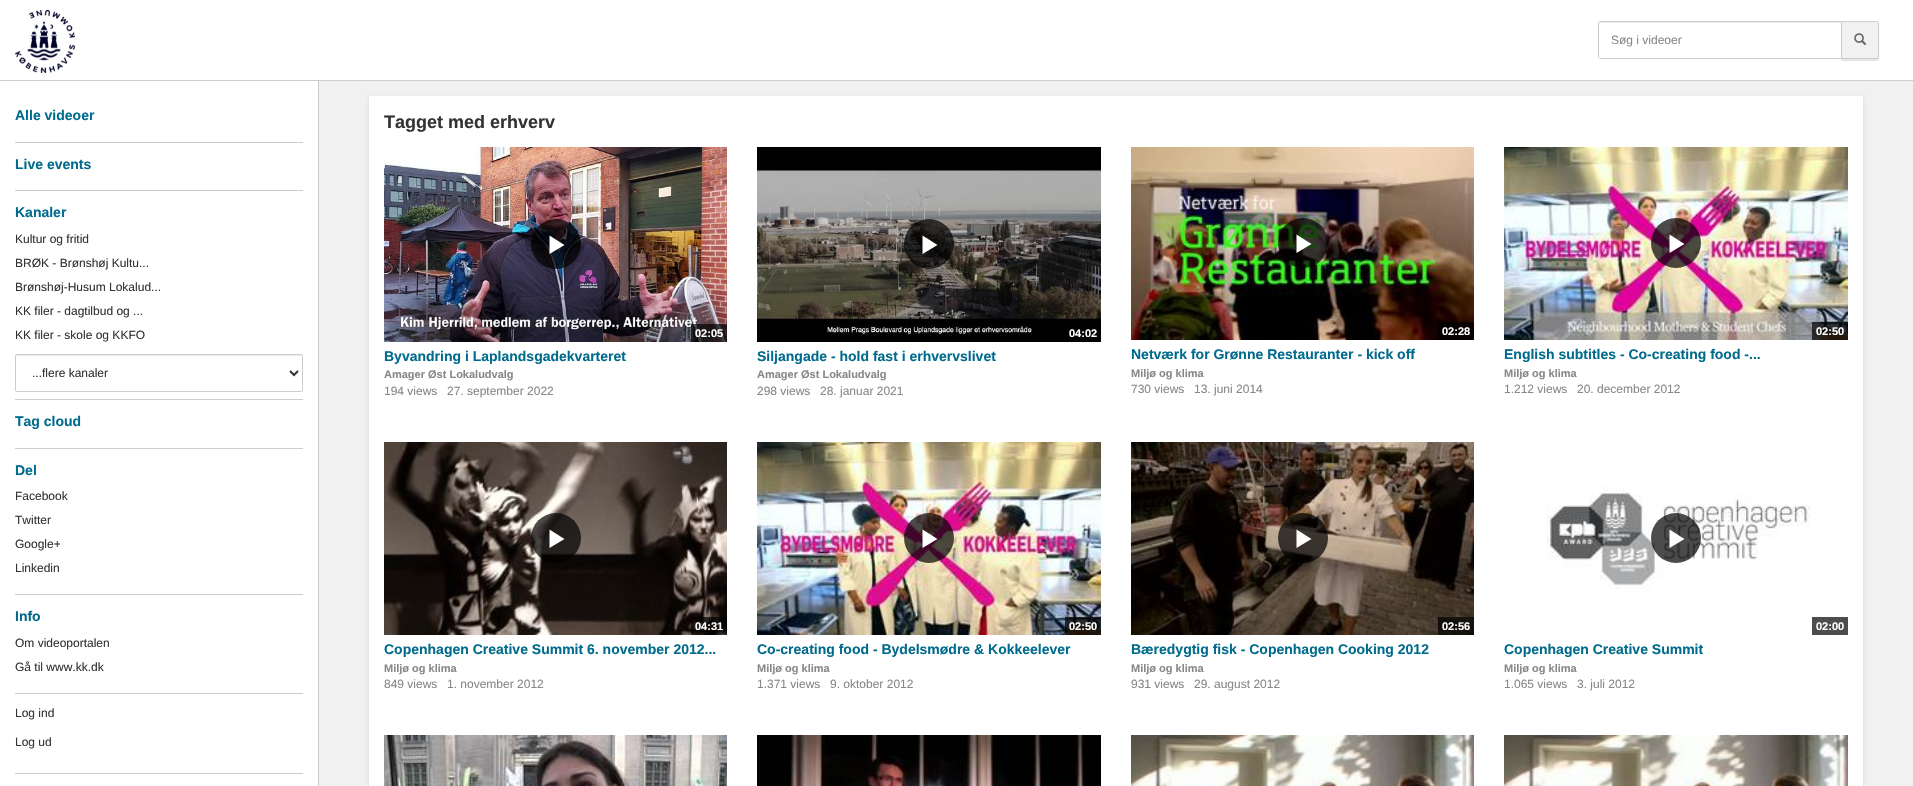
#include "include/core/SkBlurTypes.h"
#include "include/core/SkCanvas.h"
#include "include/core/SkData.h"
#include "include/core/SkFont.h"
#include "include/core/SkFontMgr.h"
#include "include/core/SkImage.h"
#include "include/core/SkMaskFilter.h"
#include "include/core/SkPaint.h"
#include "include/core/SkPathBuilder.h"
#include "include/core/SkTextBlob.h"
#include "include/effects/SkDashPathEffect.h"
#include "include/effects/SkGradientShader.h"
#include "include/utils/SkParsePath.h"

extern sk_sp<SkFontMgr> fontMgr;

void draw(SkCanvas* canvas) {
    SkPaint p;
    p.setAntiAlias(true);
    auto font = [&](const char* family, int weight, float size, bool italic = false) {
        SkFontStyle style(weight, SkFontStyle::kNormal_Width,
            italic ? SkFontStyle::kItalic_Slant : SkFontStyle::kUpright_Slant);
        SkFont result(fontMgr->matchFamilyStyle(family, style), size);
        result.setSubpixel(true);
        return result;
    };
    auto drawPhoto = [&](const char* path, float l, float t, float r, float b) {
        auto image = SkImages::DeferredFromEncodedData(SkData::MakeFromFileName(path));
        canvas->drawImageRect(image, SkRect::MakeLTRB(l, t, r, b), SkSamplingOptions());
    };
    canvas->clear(0xFFF1F1F1);
    p.setColor(0xFFFFFFFF);
    canvas->drawRect(SkRect::MakeLTRB(0, 0, 1913, 80), p);
    p.setColor(0xFFCCCCCC);
    canvas->drawRect(SkRect::MakeLTRB(0, 80, 1913, 81), p);
    drawPhoto("media/1.png", 15, 10, 75, 73);
    p.setColor(0x1A000000);
    p.setMaskFilter(SkMaskFilter::MakeBlur(kNormal_SkBlurStyle, 0.5f));
    canvas->drawRoundRect(SkRect::MakeLTRB(1841, 23, 1879, 61), 2, 2, p);
    p.setMaskFilter(nullptr);
    p.setColor(0xFFF1F1F1);
    canvas->drawPath(SkPathBuilder().moveTo(1841.5f, 21.5f).lineTo(1877, 21.5f).cubicTo(1878, 21.5f, 1878.5f, 22, 1878.5f, 23).lineTo(1878.5f, 57).cubicTo(1878.5f, 58, 1878, 58.5f, 1877, 58.5f).lineTo(1841.5f, 58.5f).close().detach(), p);
    p.setStyle(SkPaint::kStroke_Style);
    p.setStrokeWidth(1);
    p.setColor(0xFFCCCCCC);
    canvas->drawPath(SkPathBuilder().moveTo(1841.5f, 21.5f).lineTo(1877, 21.5f).cubicTo(1878, 21.5f, 1878.5f, 22, 1878.5f, 23).lineTo(1878.5f, 57).cubicTo(1878.5f, 58, 1878, 58.5f, 1877, 58.5f).lineTo(1841.5f, 58.5f).close().detach(), p);
    p.setStyle(SkPaint::kFill_Style);
    p.setColor(0xFFFFFFFF);
    canvas->drawPath(SkPathBuilder().moveTo(1600, 21).lineTo(1842, 21).lineTo(1842, 59).lineTo(1600, 59).cubicTo(1599, 59, 1598, 58, 1598, 57).lineTo(1598, 23).cubicTo(1598, 22, 1599, 21, 1600, 21).close().detach(), p);
    p.setColor(0xFFECECEC);
    canvas->drawPath(SkPathBuilder().moveTo(1600, 23).lineTo(1841, 23).lineTo(1841, 22).lineTo(1600, 22).cubicTo(1599, 22, 1599, 23, 1599, 24).close().detach(), p);
    p.setStyle(SkPaint::kStroke_Style);
    p.setColor(0xFFCCCCCC);
    canvas->drawPath(SkPathBuilder().moveTo(1600, 21.5f).lineTo(1841.5f, 21.5f).lineTo(1841.5f, 58.5f).lineTo(1600, 58.5f).cubicTo(1599, 58.5f, 1598.5f, 58, 1598.5f, 57).lineTo(1598.5f, 23).cubicTo(1598.5f, 22, 1599, 21.5f, 1600, 21.5f).close().detach(), p);
    auto font1 = font("Liberation Sans", 400, 12);
    p.setStyle(SkPaint::kFill_Style);
    p.setColor(0xFF888888);
    canvas->drawString("Søg i videoer", 1611, 44, font1, p);
    drawPhoto("media/2.png", 1854, 33, 1867, 46);
    {
        const struct { float l, t, r, b; SkColor color; } items[] = {
            {0, 81, 318, 786, 0xFFFFFFFF},
            {318, 81, 319, 786, 0xFFCCCCCC},
            {15, 142, 303, 143, 0xFFCCCCCC},
        };
        for (auto [l, t, r, b, color] : items) {
            p.setColor(color);
            canvas->drawRect(SkRect::MakeLTRB(l, t, r, b), p);
        }
    }
    auto font2 = font("Liberation Sans", 700, 14);
    p.setColor(0xFF006B8C);
    canvas->drawString("Alle videoer", 15, 120, font2, p);
    p.setColor(0xFFCCCCCC);
    canvas->drawRect(SkRect::MakeLTRB(15, 190, 303, 191), p);
    p.setColor(0xFF006B8C);
    canvas->drawString("Live events", 15, 169, font2, p);
    p.setColor(0xFFCCCCCC);
    canvas->drawRect(SkRect::MakeLTRB(15, 399, 303, 400), p);
    p.setColor(0xFF006B8C);
    canvas->drawString("Kanaler", 15, 217, font2, p);
    p.setColor(0xFF333333);
    {
        const struct { const char* s; float x, y; } items[] = {
            {"Kultur og fritid", 15, 243},
            {"BRØK - Brønshøj Kultu...", 15, 267},
            {"Brønshøj-Husum Lokalud...", 15, 291},
            {"KK filer - dagtilbud og ...", 15, 315},
            {"KK filer - skole og KKFO", 15, 339},
        };
        for (auto [s, x, y] : items) {
            canvas->drawString(s, x, y, font1, p);
        }
    }
    p.setColor(0xFFECECEC);
    canvas->drawPath(SkPathBuilder().moveTo(17, 356).lineTo(301, 356).cubicTo(302, 356, 302, 356, 302, 357).cubicTo(302, 356, 302, 355, 301, 355).lineTo(17, 355).lineTo(16, 355).lineTo(16, 357).cubicTo(16, 356, 16, 356, 17, 356).close().detach(), p);
    p.setStyle(SkPaint::kStroke_Style);
    p.setColor(0xFFCCCCCC);
    canvas->drawRoundRect(SkRect::MakeLTRB(15.5f, 354.5f, 302.5f, 391.5f), 1.5f, 1.5f, p);
    p.setStrokeWidth(2);
    p.setColor(0xFF333333);
    canvas->drawPath(SkPathBuilder().moveTo(290, 371).lineTo(294, 375).lineTo(298, 371).detach(), p);
    p.setStyle(SkPaint::kFill_Style);
    canvas->drawString("...flere kanaler", 32, 377, font1, p);
    p.setColor(0xFFCCCCCC);
    canvas->drawRect(SkRect::MakeLTRB(15, 448, 303, 449), p);
    p.setColor(0xFF006B8C);
    canvas->drawString("Tag cloud", 15, 426, font2, p);
    p.setColor(0xFFCCCCCC);
    canvas->drawRect(SkRect::MakeLTRB(15, 594, 303, 595), p);
    p.setColor(0xFF006B8C);
    canvas->drawString("Del", 15, 475, font2, p);
    p.setColor(0xFF333333);
    {
        const struct { const char* s; float x, y; } items[] = {
            {"Facebook", 15, 500},
            {"Twitter", 15, 524},
            {"Google+", 15, 548},
            {"Linkedin", 15, 572},
        };
        for (auto [s, x, y] : items) {
            canvas->drawString(s, x, y, font1, p);
        }
    }
    p.setColor(0xFFCCCCCC);
    canvas->drawRect(SkRect::MakeLTRB(15, 693, 303, 694), p);
    p.setColor(0xFF006B8C);
    canvas->drawString("Info", 15, 621, font2, p);
    p.setColor(0xFF333333);
    canvas->drawString("Om videoportalen", 15, 647, font1, p);
    canvas->drawString("Gå til www.kk.dk", 15, 671, font1, p);
    p.setColor(0xFFCCCCCC);
    canvas->drawRect(SkRect::MakeLTRB(15, 773, 303, 774), p);
    p.setColor(0xFF333333);
    canvas->drawString("Log ind", 15, 717, font1, p);
    canvas->drawString("Log ud", 15, 746, font1, p);
    p.setColor(0x1A000000);
    p.setMaskFilter(SkMaskFilter::MakeBlur(kNormal_SkBlurStyle, 2));
    canvas->drawRect(SkRect::MakeLTRB(369, 98, 1863, 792), p);
    p.setMaskFilter(nullptr);
    p.setColor(0xFFFFFFFF);
    canvas->drawRect(SkRect::MakeLTRB(369, 96, 1863, 786), p);
    auto font3 = font("Liberation Sans", 700, 18);
    p.setColor(0xFF333333);
    canvas->drawString("Tagget med erhverv", 384, 128, font3, p);
    drawPhoto("media/3.png", 384, 147, 727, 342);
    p.setColor(0xB3000000);
    canvas->drawCircle(556, 244, 25, p);
    p.setColor(0xFFFFFFFF);
    canvas->drawPath(SkPathBuilder().moveTo(549.5f, 254).lineTo(564.5f, 245).lineTo(549.5f, 235.5f).close().detach(), p);
    p.setColor(0xB3000000);
    canvas->drawRect(SkRect::MakeLTRB(691, 324, 727, 342), p);
    auto font4 = font("Liberation Sans", 700, 11);
    p.setColor(0xFFFFFFFF);
    canvas->drawString("02:05", 695, 337, font4, p);
    p.setColor(0xFF006B8C);
    canvas->drawString("Byvandring i Laplandsgadekvarteret", 384, 361, font2, p);
    p.setColor(0xFF888888);
    canvas->drawString("Amager Øst Lokaludvalg", 384, 378, font4, p);
    canvas->drawString("194 views", 384, 395, font1, p);
    canvas->drawString("27. september 2022", 447, 395, font1, p);
    drawPhoto("media/4.png", 757, 147, 1101, 342);
    p.setColor(0xB3000000);
    canvas->drawCircle(929, 244, 25, p);
    p.setColor(0xFFFFFFFF);
    canvas->drawPath(SkPathBuilder().moveTo(922.5f, 254).lineTo(937.5f, 245).lineTo(922.5f, 235.5f).close().detach(), p);
    canvas->drawString("04:02", 1069, 337, font4, p);
    p.setColor(0xFF006B8C);
    canvas->drawString("Siljangade - hold fast i erhvervslivet", 757, 361, font2, p);
    p.setColor(0xFF888888);
    canvas->drawString("Amager Øst Lokaludvalg", 757, 378, font4, p);
    canvas->drawString("298 views", 757, 395, font1, p);
    canvas->drawString("28. januar 2021", 820, 395, font1, p);
    drawPhoto("media/5.png", 1131, 147, 1474, 340);
    p.setColor(0xB3000000);
    canvas->drawCircle(1303, 243, 25, p);
    p.setColor(0xFFFFFFFF);
    canvas->drawPath(SkPathBuilder().moveTo(1296.5f, 253).lineTo(1311.5f, 244).lineTo(1296.5f, 234.5f).close().detach(), p);
    p.setColor(0xB3000000);
    canvas->drawRect(SkRect::MakeLTRB(1438, 322, 1474, 340), p);
    p.setColor(0xFFFFFFFF);
    canvas->drawString("02:28", 1442, 335, font4, p);
    p.setColor(0xFF006B8C);
    canvas->drawString("Netværk for Grønne Restauranter - kick off", 1131, 359, font2, p);
    p.setColor(0xFF888888);
    canvas->drawString("Miljø og klima", 1131, 377, font4, p);
    canvas->drawString("730 views", 1131, 393, font1, p);
    canvas->drawString("13. juni 2014", 1194, 393, font1, p);
    drawPhoto("media/6.png", 1504, 147, 1848, 340);
    p.setColor(0xB3000000);
    canvas->drawCircle(1676, 243, 25, p);
    p.setColor(0xFFFFFFFF);
    canvas->drawPath(SkPathBuilder().moveTo(1669.5f, 253).lineTo(1684.5f, 244).lineTo(1669.5f, 234.5f).close().detach(), p);
    p.setColor(0xB3000000);
    canvas->drawRect(SkRect::MakeLTRB(1812, 322, 1848, 340), p);
    p.setColor(0xFFFFFFFF);
    canvas->drawString("02:50", 1816, 335, font4, p);
    p.setColor(0xFF006B8C);
    canvas->drawString("English subtitles - Co-creating food -...", 1504, 359, font2, p);
    p.setColor(0xFF888888);
    canvas->drawString("Miljø og klima", 1504, 377, font4, p);
    canvas->drawString("1.212 views", 1504, 393, font1, p);
    canvas->drawString("20. december 2012", 1577, 393, font1, p);
    drawPhoto("media/7.png", 384, 442, 727, 635);
    p.setColor(0xB3000000);
    canvas->drawCircle(556, 538, 25, p);
    p.setColor(0xFFFFFFFF);
    canvas->drawPath(SkPathBuilder().moveTo(549.5f, 548).lineTo(564.5f, 539).lineTo(549.5f, 529.5f).close().detach(), p);
    p.setColor(0xB3000000);
    canvas->drawRect(SkRect::MakeLTRB(691, 617, 727, 635), p);
    p.setColor(0xFFFFFFFF);
    canvas->drawString("04:31", 695, 630, font4, p);
    p.setColor(0xFF006B8C);
    canvas->drawString("Copenhagen Creative Summit 6. november 2012...", 384, 654, font2, p);
    p.setColor(0xFF888888);
    canvas->drawString("Miljø og klima", 384, 672, font4, p);
    canvas->drawString("849 views", 384, 688, font1, p);
    canvas->drawString("1. november 2012", 447, 688, font1, p);
    drawPhoto("media/8.png", 757, 442, 1101, 635);
    p.setColor(0xB3000000);
    canvas->drawCircle(929, 538, 25, p);
    p.setColor(0xFFFFFFFF);
    canvas->drawPath(SkPathBuilder().moveTo(922.5f, 548).lineTo(937.5f, 539).lineTo(922.5f, 529.5f).close().detach(), p);
    p.setColor(0xB3000000);
    canvas->drawRect(SkRect::MakeLTRB(1065, 617, 1101, 635), p);
    p.setColor(0xFFFFFFFF);
    canvas->drawString("02:50", 1069, 630, font4, p);
    p.setColor(0xFF006B8C);
    canvas->drawString("Co-creating food - Bydelsmødre & Kokkeelever", 757, 654, font2, p);
    p.setColor(0xFF888888);
    canvas->drawString("Miljø og klima", 757, 672, font4, p);
    canvas->drawString("1.371 views", 757, 688, font1, p);
    canvas->drawString("9. oktober 2012", 830, 688, font1, p);
    drawPhoto("media/9.png", 1131, 442, 1474, 635);
    p.setColor(0xB3000000);
    canvas->drawCircle(1303, 538, 25, p);
    p.setColor(0xFFFFFFFF);
    canvas->drawPath(SkPathBuilder().moveTo(1296.5f, 548).lineTo(1311.5f, 539).lineTo(1296.5f, 529.5f).close().detach(), p);
    p.setColor(0xB3000000);
    canvas->drawRect(SkRect::MakeLTRB(1438, 617, 1474, 635), p);
    p.setColor(0xFFFFFFFF);
    canvas->drawString("02:56", 1442, 630, font4, p);
    p.setColor(0xFF006B8C);
    canvas->drawString("Bæredygtig fisk - Copenhagen Cooking 2012", 1131, 654, font2, p);
    p.setColor(0xFF888888);
    canvas->drawString("Miljø og klima", 1131, 672, font4, p);
    canvas->drawString("931 views", 1131, 688, font1, p);
    canvas->drawString("29. august 2012", 1194, 688, font1, p);
    drawPhoto("media/10.png", 1546, 486, 1811, 590);
    p.setColor(0xB3000000);
    canvas->drawCircle(1676, 538, 25, p);
    p.setColor(0xFFFFFFFF);
    canvas->drawPath(SkPathBuilder().moveTo(1669.5f, 548).lineTo(1684.5f, 539).lineTo(1669.5f, 529.5f).close().detach(), p);
    p.setColor(0xFF4D4D4D);
    canvas->drawRect(SkRect::MakeLTRB(1812, 617, 1848, 635), p);
    p.setColor(0xFFFFFFFF);
    canvas->drawString("02:00", 1816, 630, font4, p);
    p.setColor(0xFF006B8C);
    canvas->drawString("Copenhagen Creative Summit", 1504, 654, font2, p);
    p.setColor(0xFF888888);
    canvas->drawString("Miljø og klima", 1504, 672, font4, p);
    canvas->drawString("1.065 views", 1504, 688, font1, p);
    canvas->drawString("3. juli 2012", 1577, 688, font1, p);
    drawPhoto("media/11.png", 384, 735, 727, 786);
    drawPhoto("media/12.png", 757, 735, 1101, 786);
    drawPhoto("media/13.png", 1131, 735, 1474, 786);
    drawPhoto("media/14.png", 1504, 735, 1848, 786);
}
